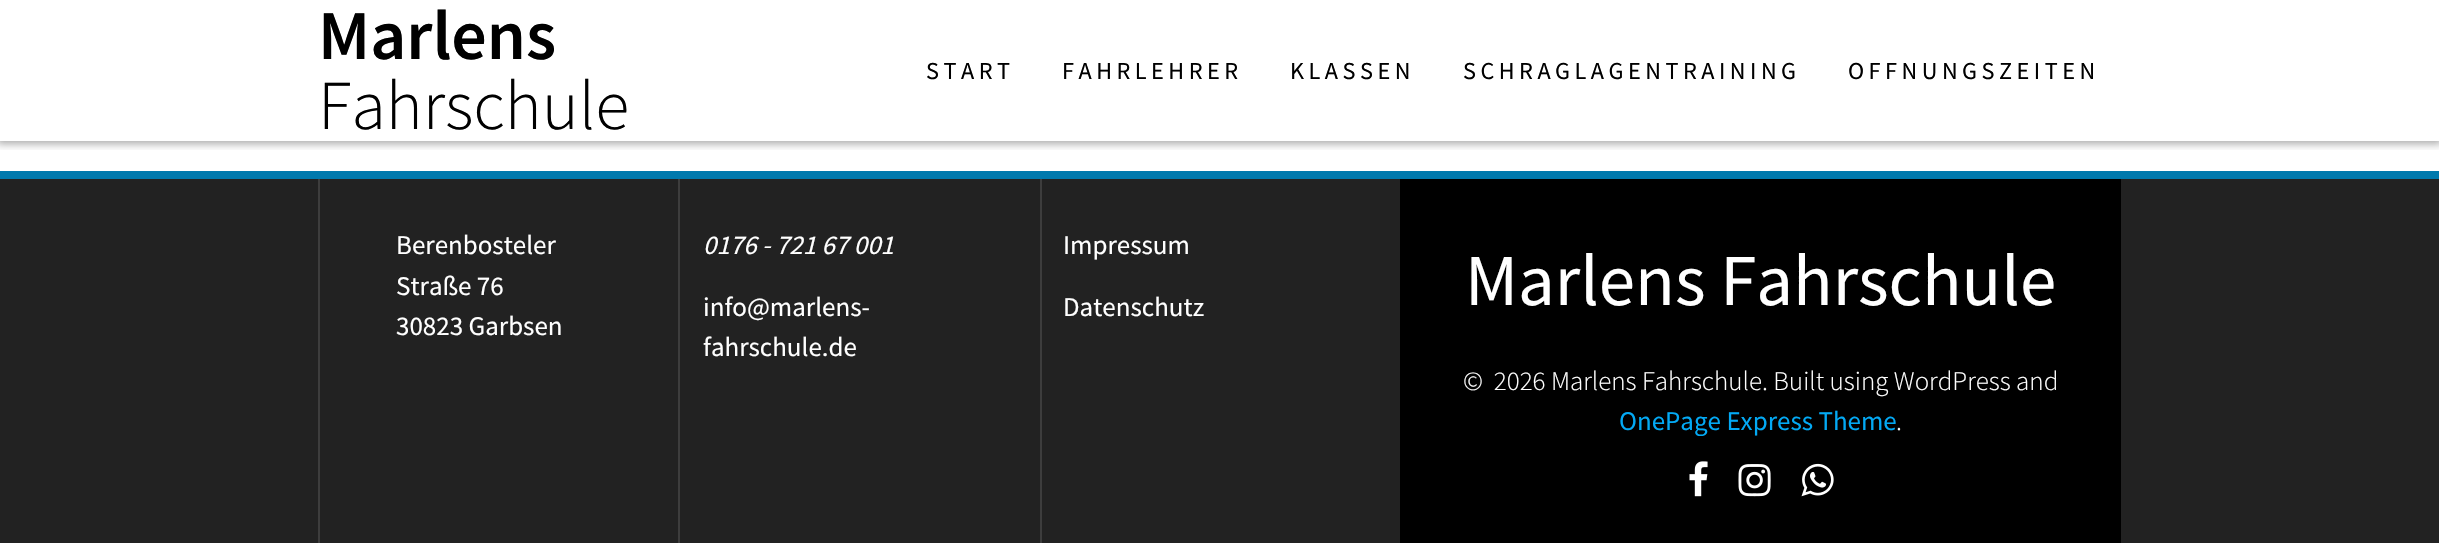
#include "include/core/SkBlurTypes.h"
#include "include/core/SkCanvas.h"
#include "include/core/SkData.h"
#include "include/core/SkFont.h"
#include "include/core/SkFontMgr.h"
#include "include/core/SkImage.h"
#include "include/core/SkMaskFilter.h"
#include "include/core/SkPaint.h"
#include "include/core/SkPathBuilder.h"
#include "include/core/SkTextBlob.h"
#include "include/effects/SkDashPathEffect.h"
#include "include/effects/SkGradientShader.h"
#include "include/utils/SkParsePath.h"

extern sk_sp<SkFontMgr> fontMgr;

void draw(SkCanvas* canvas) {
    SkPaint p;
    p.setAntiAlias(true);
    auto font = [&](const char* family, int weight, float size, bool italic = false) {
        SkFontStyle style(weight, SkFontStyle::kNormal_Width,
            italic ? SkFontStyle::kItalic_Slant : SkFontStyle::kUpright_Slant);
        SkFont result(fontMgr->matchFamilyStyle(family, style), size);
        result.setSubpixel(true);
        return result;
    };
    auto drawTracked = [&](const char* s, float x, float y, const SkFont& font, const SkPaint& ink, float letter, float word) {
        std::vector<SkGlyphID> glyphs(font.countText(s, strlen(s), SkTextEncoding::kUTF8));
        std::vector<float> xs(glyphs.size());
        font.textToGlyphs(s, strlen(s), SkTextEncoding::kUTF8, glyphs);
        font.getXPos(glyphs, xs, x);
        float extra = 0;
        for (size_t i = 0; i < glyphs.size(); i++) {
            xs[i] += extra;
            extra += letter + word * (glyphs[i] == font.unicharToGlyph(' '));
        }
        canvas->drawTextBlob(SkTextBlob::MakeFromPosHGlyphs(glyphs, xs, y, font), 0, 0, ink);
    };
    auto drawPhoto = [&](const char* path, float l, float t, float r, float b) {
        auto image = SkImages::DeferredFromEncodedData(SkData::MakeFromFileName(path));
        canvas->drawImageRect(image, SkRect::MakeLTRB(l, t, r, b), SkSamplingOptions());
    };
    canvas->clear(0xFFFFFFFF);
    canvas->save();
    canvas->clipRect(SkRect::MakeLTRB(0, 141, 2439, 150));
    p.setColor(0x54000000);
    p.setMaskFilter(SkMaskFilter::MakeBlur(kNormal_SkBlurStyle, 4));
    canvas->drawRect(SkRect::MakeLTRB(-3, -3, 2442, 144), p);
    p.setMaskFilter(nullptr);
    canvas->restore();
    auto font1 = font("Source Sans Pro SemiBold", 600, 70);
    p.setColor(0xFF000000);
    canvas->drawString("Marlens", 318, 59, font1, p);
    auto font2 = font("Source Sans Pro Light", 300, 70);
    canvas->drawString("Fahrschule", 318, 129, font2, p);
    auto font3 = font("Source Sans Pro", 400, 24.25f);
    {
        const struct { const char* s; float x, y; } items[] = {
            {"START", 926, 79},
            {"FAHRLEHRER", 1062, 79},
            {"KLASSEN", 1290, 79},
            {"SCHRAGLAGENTRAINING", 1463, 79},
            {"OFFNUNGSZEITEN", 1848, 79},
        };
        for (auto [s, x, y] : items) {
            drawTracked(s, x, y, font3, p, 4.5f, 0);
        }
    }
    {
        const struct { float l, t, r, b; SkColor color; } items[] = {
            {0, 179, 2439, 543, 0xFF222222},
            {0, 171, 2439, 179, 0xFF0079AD},
            {318, 179, 320, 543, 0xFF3D3D3D},
        };
        for (auto [l, t, r, b, color] : items) {
            p.setColor(color);
            canvas->drawRect(SkRect::MakeLTRB(l, t, r, b), p);
        }
    }
    auto font4 = font("Source Sans Pro", 400, 27);
    p.setColor(0xFFFFFFFF);
    {
        const struct { const char* s; float x, y; } items[] = {
            {"Berenbosteler", 396, 254},
            {"Straße 76", 396, 295},
            {"30823 Garbsen", 396, 335},
        };
        for (auto [s, x, y] : items) {
            canvas->drawString(s, x, y, font4, p);
        }
    }
    p.setColor(0xFF3D3D3D);
    canvas->drawRect(SkRect::MakeLTRB(678, 179, 680, 543), p);
    auto font5 = font("Source Sans Pro", 400, 27, true);
    p.setColor(0xFFFFFFFF);
    canvas->drawString("0176 - 721 67 001", 703, 254, font5, p);
    canvas->drawString("info@marlens-", 703, 316, font4, p);
    canvas->drawString("fahrschule.de", 703, 356, font4, p);
    p.setColor(0xFF3D3D3D);
    canvas->drawRect(SkRect::MakeLTRB(1040, 179, 1042, 543), p);
    p.setColor(0xFFFFFFFF);
    canvas->drawString("Impressum", 1063, 254, font4, p);
    canvas->drawString("Datenschutz", 1063, 316, font4, p);
    p.setColor(0xFF000000);
    canvas->drawRect(SkRect::MakeLTRB(1400, 179, 2121, 543), p);
    auto font6 = font("Source Sans Pro", 400, 73);
    p.setColor(0xFFFFFFFF);
    canvas->drawString("Marlens Fahrschule", 1465, 305, font6, p);
    auto font7 = font("Source Sans Pro Light", 300, 27);
    canvas->drawString("©  2026 Marlens Fahrschule. Built using WordPress and", 1463, 390, font7, p);
    p.setColor(0xFF03A9F4);
    canvas->drawString("OnePage Express Theme", 1619, 430, font4, p);
    p.setColor(0xFFFFFFFF);
    canvas->drawString(".", 1896, 430, font7, p);
    drawPhoto("media/1.png", 1689, 461, 1708, 497);
    drawPhoto("media/2.png", 1738, 464, 1771, 497);
    drawPhoto("media/3.png", 1801, 463, 1834, 497);
}
